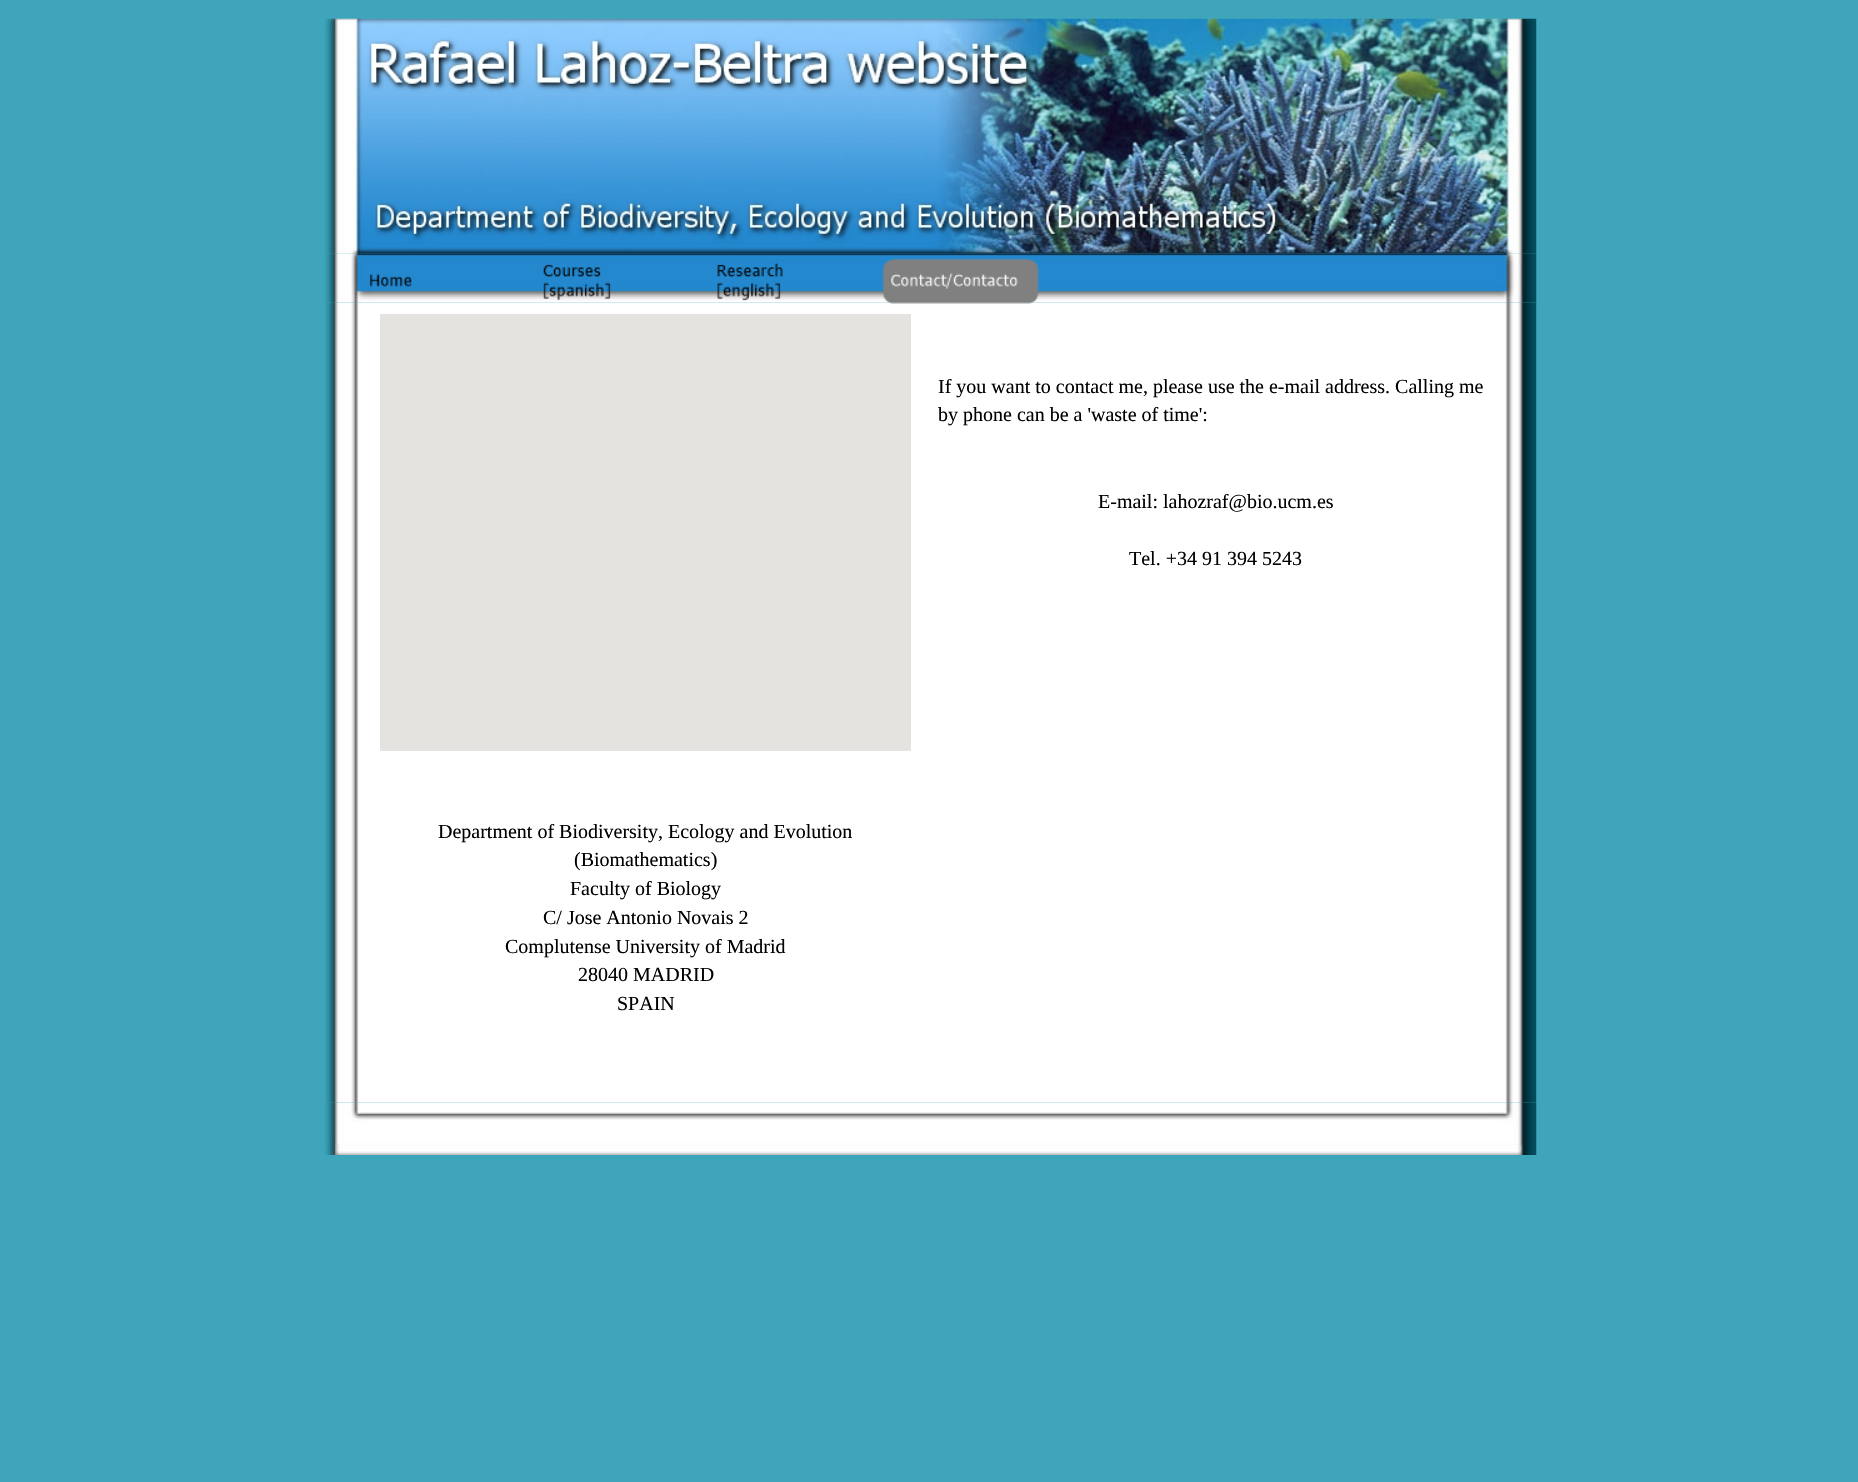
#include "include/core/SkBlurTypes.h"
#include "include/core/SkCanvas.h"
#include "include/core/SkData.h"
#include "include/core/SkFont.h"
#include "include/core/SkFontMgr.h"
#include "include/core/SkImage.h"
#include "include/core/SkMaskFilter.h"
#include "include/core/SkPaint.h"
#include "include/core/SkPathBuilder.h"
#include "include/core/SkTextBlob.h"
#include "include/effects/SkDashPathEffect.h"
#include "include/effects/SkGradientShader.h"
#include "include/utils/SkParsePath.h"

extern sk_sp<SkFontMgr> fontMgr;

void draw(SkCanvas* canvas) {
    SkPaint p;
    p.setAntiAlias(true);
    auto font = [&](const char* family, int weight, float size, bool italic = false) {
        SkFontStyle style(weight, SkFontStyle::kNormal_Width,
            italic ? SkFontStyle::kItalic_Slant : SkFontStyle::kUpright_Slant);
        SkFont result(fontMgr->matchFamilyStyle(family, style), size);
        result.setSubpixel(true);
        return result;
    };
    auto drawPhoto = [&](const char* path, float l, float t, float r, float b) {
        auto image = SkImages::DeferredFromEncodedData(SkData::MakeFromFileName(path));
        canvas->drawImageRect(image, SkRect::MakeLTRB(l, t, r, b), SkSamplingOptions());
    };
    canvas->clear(0xFF3FA5BB);
    drawPhoto("media/1.png", 324, 18, 1537, 254);
    drawPhoto("media/7.png", 325, 302, 1537, 1103);
    drawPhoto("media/2.png", 324, 253, 1537, 303);
    drawPhoto("media/3.png", 369, 273, 412, 287);
    drawPhoto("media/4.png", 543, 264, 611, 301);
    drawPhoto("media/5.png", 717, 263, 783, 301);
    drawPhoto("media/6.png", 882, 258, 1039, 304);
    p.setColor(0xFFE5E3DF);
    canvas->drawRect(SkRect::MakeLTRB(380, 314, 911, 751), p);
    auto font1 = font("Liberation Serif", 400, 20);
    p.setColor(0xFF000000);
    {
        const struct { const char* s; float x, y; } items[] = {
            {"If you want to contact me, please use the e-mail address. Calling me", 938, 393},
            {"by phone can be a 'waste of time':", 938, 421},
            {"E-mail: lahozraf@bio.ucm.es", 1098, 508},
            {"Tel. +34 91 394 5243", 1129, 565},
            {"Department of Biodiversity, Ecology and Evolution", 438, 838},
            {"(Biomathematics)", 574, 866},
            {"Faculty of Biology", 570, 895},
            {"C/ Jose Antonio Novais 2", 543, 924},
            {"Complutense University of Madrid", 505, 953},
            {"28040 MADRID", 578, 981},
            {"SPAIN", 617, 1010},
        };
        for (auto [s, x, y] : items) {
            canvas->drawString(s, x, y, font1, p);
        }
    }
    drawPhoto("media/8.png", 324, 1102, 1537, 1155);
}
